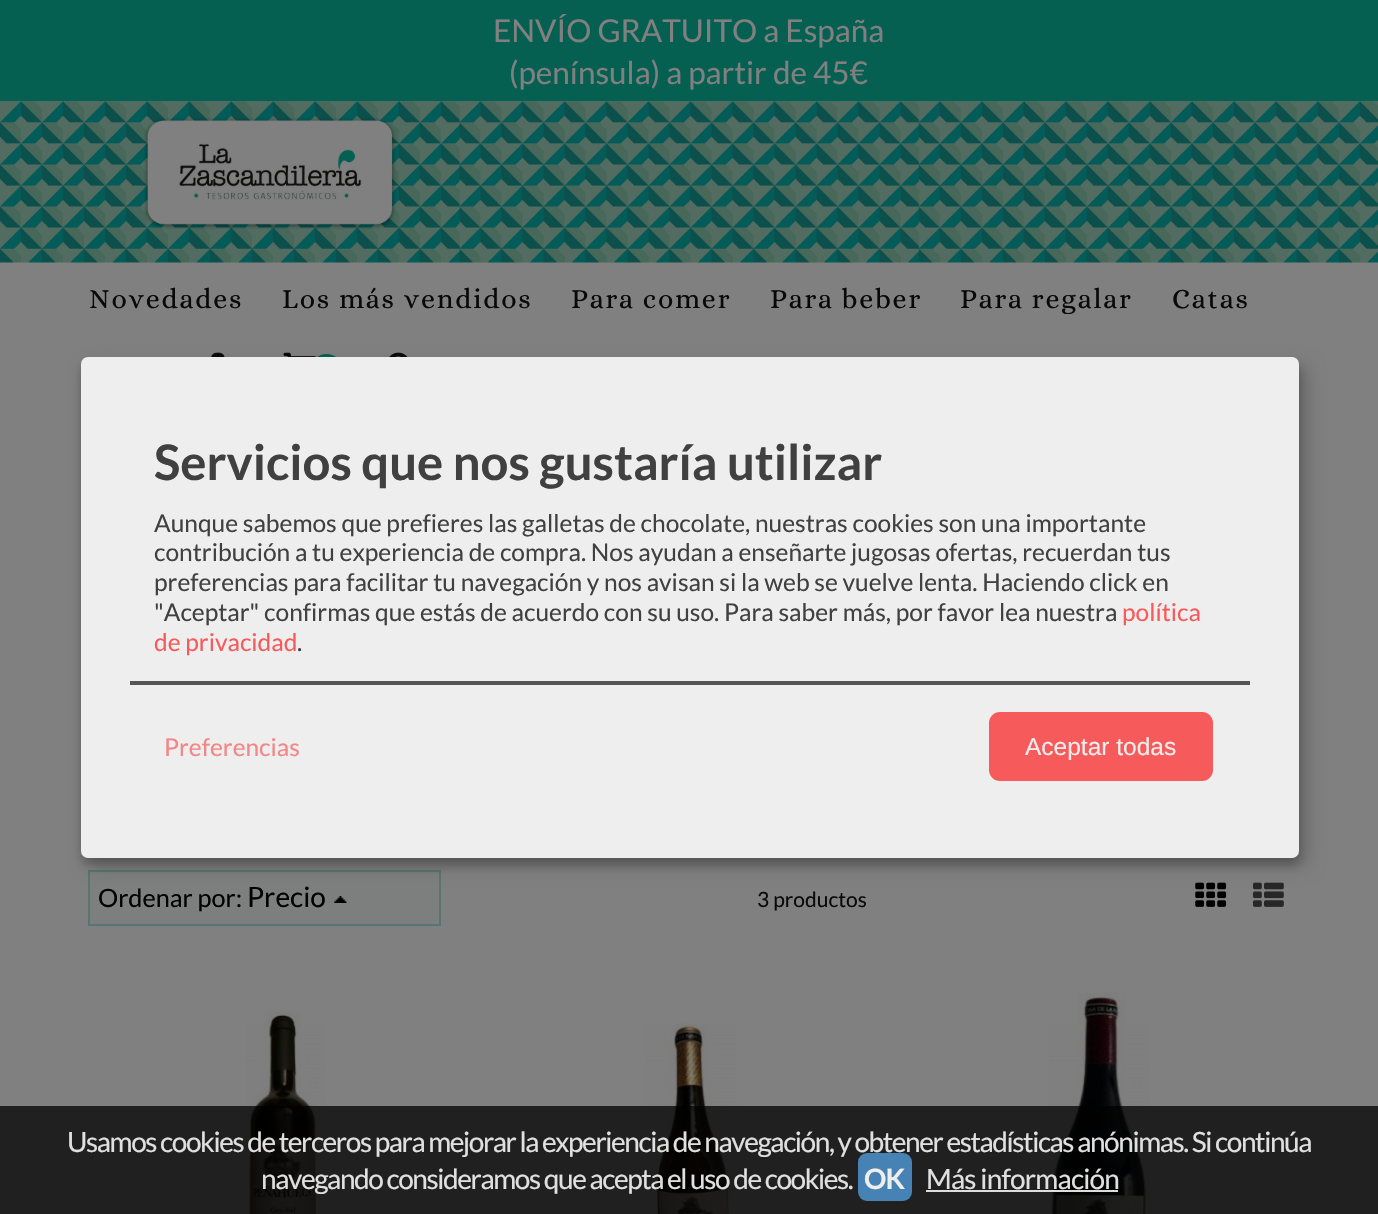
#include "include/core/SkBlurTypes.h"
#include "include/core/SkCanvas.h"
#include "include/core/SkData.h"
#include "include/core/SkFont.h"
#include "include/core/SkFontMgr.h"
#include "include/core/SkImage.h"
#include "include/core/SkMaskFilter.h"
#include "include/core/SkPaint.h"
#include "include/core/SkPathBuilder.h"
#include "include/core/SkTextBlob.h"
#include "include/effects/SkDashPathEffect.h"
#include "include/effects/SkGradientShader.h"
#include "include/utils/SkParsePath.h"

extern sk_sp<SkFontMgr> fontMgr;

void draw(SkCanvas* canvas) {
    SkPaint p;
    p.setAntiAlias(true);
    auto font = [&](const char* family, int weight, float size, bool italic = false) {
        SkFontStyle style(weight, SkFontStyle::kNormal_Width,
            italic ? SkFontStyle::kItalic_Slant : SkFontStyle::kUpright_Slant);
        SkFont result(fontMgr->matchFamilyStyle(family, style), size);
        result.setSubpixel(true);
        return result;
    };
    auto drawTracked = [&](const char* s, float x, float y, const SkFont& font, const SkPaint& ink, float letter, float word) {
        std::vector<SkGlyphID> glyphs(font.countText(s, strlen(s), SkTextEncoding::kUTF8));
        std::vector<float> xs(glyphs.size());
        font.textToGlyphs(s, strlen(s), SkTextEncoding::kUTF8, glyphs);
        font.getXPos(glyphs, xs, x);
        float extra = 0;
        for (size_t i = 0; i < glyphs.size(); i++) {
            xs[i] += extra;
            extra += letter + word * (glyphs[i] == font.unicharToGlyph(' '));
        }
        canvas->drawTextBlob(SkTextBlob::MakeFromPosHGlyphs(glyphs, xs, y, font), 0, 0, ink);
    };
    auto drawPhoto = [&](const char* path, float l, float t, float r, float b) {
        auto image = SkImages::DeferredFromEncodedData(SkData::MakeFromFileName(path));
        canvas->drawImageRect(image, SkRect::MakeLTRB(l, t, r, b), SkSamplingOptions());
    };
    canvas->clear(0xFF808080);
    p.setColor(0xFF066052);
    canvas->drawRect(SkRect::MakeLTRB(0, 0, 1378, 101), p);
    auto font1 = font("Lato", 400, 31.5f);
    p.setColor(0xFF808080);
    canvas->drawString("ENVÍO GRATUITO a España", 493, 42, font1, p);
    canvas->drawString("(península) a partir de 45€", 509, 84, font1, p);
    p.setColor(0xFF437069);
    canvas->drawRect(SkRect::MakeLTRB(0, 101, 1378, 102), p);
    drawPhoto("media/1.png", 0, 101, 1378, 263);
    auto font2 = font("Alice", 400, 28);
    p.setColor(0xFF090909);
    {
        const struct { const char* s; float x, y; } items[] = {
            {"Novedades", 89, 308},
            {"Los más vendidos", 282, 308},
            {"Para comer", 571, 308},
            {"Para beber", 770, 308},
            {"Para regalar", 960, 308},
            {"Catas", 1172, 308},
        };
        for (auto [s, x, y] : items) {
            drawTracked(s, x, y, font2, p, 1.75f, 0);
        }
    }
    drawPhoto("media/2.png", 211, 352, 225, 357);
    drawPhoto("media/3.png", 283, 352, 316, 357);
    p.setColor(0xFF066052);
    canvas->drawCircle(326.5f, 370.5f, 16.5f, p);
    drawPhoto("media/4.png", 389, 352, 408, 357);
    p.setColor(0xFF7C7F7E);
    canvas->drawRect(SkRect::MakeLTRB(89, 871, 440, 925), p);
    p.setStyle(SkPaint::kStroke_Style);
    p.setStrokeWidth(2);
    p.setColor(0xFF57766F);
    canvas->drawRect(SkRect::MakeLTRB(89, 871, 440, 925), p);
    auto font3 = font("Lato", 400, 25.25f);
    p.setStyle(SkPaint::kFill_Style);
    p.setColor(0xFF000000);
    canvas->drawString("Ordenar por:", 98, 907, font3, p);
    auto font4 = font("Lato", 400, 28);
    canvas->drawString("Precio", 247, 907, font4, p);
    drawPhoto("media/5.png", 334, 896, 347, 903);
    auto font5 = font("Lato", 400, 21);
    p.setColor(0xFF090909);
    canvas->drawString("3 productos", 757, 907, font5, p);
    drawPhoto("media/6.png", 1195, 882, 1227, 907);
    drawPhoto("media/7.png", 1253, 882, 1284, 907);
    drawPhoto("media/8.png", 246, 1009, 325, 1214);
    drawPhoto("media/9.png", 645, 1023, 737, 1214);
    drawPhoto("media/10.png", 1049, 992, 1149, 1214);
    p.setColor(0x30000000);
    p.setMaskFilter(SkMaskFilter::MakeBlur(kNormal_SkBlurStyle, 9));
    canvas->drawRoundRect(SkRect::MakeLTRB(89, 366, 1307, 866), 7, 7, p);
    p.setMaskFilter(nullptr);
    p.setColor(0x33000000);
    p.setMaskFilter(SkMaskFilter::MakeBlur(kNormal_SkBlurStyle, 5));
    canvas->drawRoundRect(SkRect::MakeLTRB(81, 364, 1299, 865), 7, 7, p);
    p.setMaskFilter(nullptr);
    p.setColor(0xFFEEEEEE);
    canvas->drawRoundRect(SkRect::MakeLTRB(81, 357, 1299, 858), 7, 7, p);
    p.setColor(0xFF555555);
    canvas->drawRect(SkRect::MakeLTRB(130, 681, 1250, 685), p);
    auto font6 = font("Lato", 700, 49);
    p.setColor(0xFF404040);
    canvas->drawString("Servicios que nos gustaría utilizar", 154, 480, font6, p);
    auto font7 = font("Lato", 400, 24.5f);
    {
        const struct { const char* s; float x, y; } items[] = {
            {"Aunque sabemos que prefieres las galletas de chocolate, nuestras cookies son una importante", 154, 532},
            {"contribución a tu experiencia de compra. Nos ayudan a enseñarte jugosas ofertas, recuerdan tus", 154, 561},
            {"preferencias para facilitar tu navegación y nos avisan si la web se vuelve lenta. Haciendo click en", 154, 591},
            {"\"Aceptar\" confirmas que estás de acuerdo con su uso. Para saber más, por favor lea nuestra", 154, 621},
        };
        for (auto [s, x, y] : items) {
            canvas->drawString(s, x, y, font7, p);
        }
    }
    p.setColor(0xFFF75A5A);
    canvas->drawString("política", 1122, 621, font7, p);
    canvas->drawString("de privacidad", 154, 651, font7, p);
    p.setColor(0xFF404040);
    canvas->drawString(".", 297, 651, font7, p);
    p.setColor(0xFFF48686);
    canvas->drawString("Preferencias", 164, 756, font7, p);
    p.setColor(0xFFF75A5A);
    canvas->drawRoundRect(SkRect::MakeLTRB(989, 712, 1213, 781), 11, 11, p);
    auto font8 = font("Liberation Sans", 400, 24.5f);
    p.setColor(0xFFEEEEEE);
    canvas->drawString("Aceptar todas", 1025, 755, font8, p);
    p.setColor(0xBF000000);
    canvas->drawRect(SkRect::MakeLTRB(0, 1106, 1378, 1214), p);
    p.setColor(0xFFE0E0E0);
    drawTracked("Usamos cookies de terceros para mejorar la experiencia de navegación, y obtener estadísticas anónimas. Si continúa", 67, 1152, font4, p, -1.4f, 0);
    drawTracked("navegando consideramos que acepta el uso de cookies.", 261, 1189, font4, p, -1.4f, 0);
    p.setColor(0xFF4682B4);
    canvas->drawRoundRect(SkRect::MakeLTRB(858, 1153, 912, 1201), 9, 9, p);
    auto font9 = font("Lato", 700, 28);
    p.setColor(0xFFEEEEEE);
    drawTracked("OK", 864, 1189, font9, p, -0.8f, 0);
    p.setColor(0xFFE0E0E0);
    drawTracked("Más información", 926, 1189, font4, p, -0.8f, 0);
    p.setColor(0xFFDDDDDD);
    canvas->drawRect(SkRect::MakeLTRB(926, 1190, 1118, 1192), p);
}
